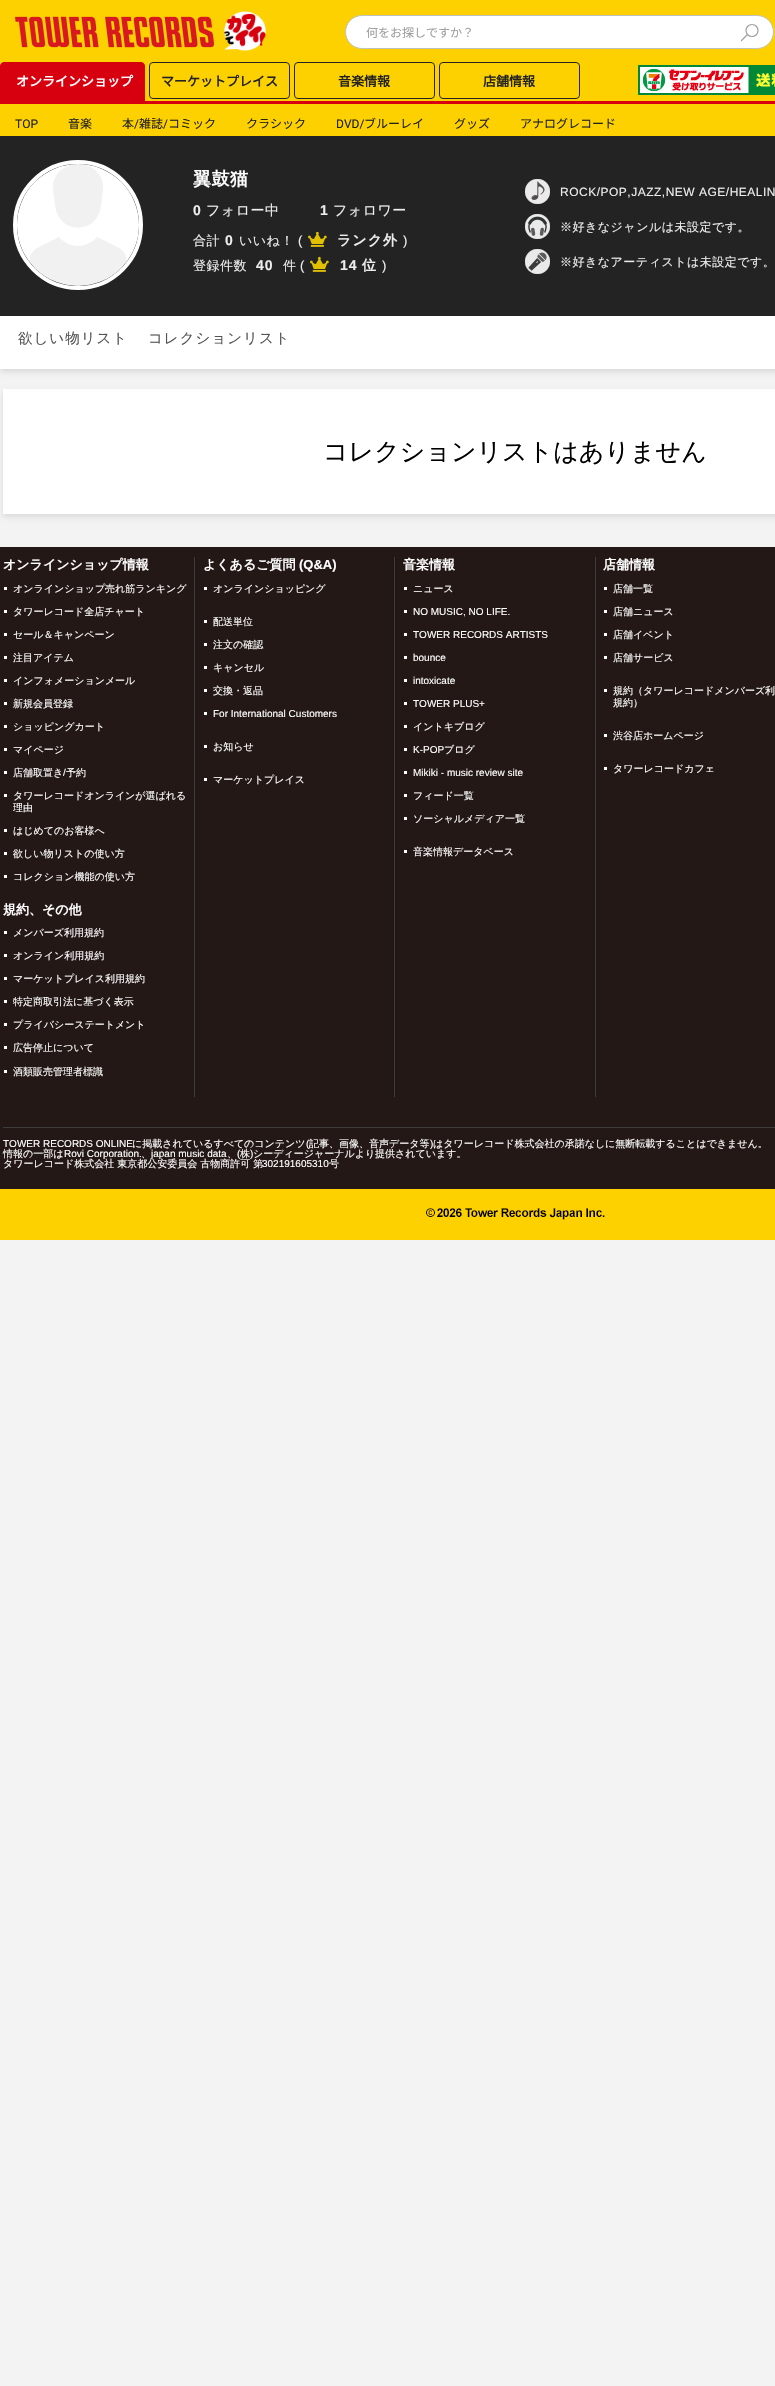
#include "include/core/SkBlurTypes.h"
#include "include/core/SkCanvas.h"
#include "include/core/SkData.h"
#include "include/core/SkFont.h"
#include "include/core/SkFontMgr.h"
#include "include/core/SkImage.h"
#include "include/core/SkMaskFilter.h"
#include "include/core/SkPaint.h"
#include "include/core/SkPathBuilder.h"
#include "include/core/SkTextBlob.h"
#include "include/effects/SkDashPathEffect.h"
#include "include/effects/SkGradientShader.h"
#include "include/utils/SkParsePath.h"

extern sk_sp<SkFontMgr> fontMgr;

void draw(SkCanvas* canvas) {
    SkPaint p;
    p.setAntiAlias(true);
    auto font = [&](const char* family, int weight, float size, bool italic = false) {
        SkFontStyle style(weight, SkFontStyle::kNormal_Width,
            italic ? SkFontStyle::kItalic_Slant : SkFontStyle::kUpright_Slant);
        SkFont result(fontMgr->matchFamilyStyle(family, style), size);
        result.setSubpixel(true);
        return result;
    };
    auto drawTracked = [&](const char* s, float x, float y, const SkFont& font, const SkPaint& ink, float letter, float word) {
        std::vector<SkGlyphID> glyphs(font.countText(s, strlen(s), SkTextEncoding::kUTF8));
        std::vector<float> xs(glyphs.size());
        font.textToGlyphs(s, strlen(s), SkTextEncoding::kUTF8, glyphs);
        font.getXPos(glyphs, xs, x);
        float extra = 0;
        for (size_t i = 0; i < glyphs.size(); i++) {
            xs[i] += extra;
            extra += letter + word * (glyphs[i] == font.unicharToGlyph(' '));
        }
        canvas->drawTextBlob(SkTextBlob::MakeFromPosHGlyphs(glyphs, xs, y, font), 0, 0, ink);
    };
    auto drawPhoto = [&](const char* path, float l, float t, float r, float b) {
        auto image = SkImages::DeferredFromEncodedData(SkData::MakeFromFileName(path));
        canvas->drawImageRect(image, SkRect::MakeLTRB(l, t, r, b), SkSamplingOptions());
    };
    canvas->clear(0xFFF3F3F3);
    p.setColor(0xFFFDD000);
    canvas->drawRect(SkRect::MakeLTRB(0, 0, 775, 136), p);
    drawPhoto("media/1.png", 15, 16, 214, 48);
    drawPhoto("media/2.png", 224, 11, 266, 51);
    p.setColor(0xFFFFFFFF);
    canvas->drawRoundRect(SkRect::MakeLTRB(345.5f, 15.5f, 773.5f, 48.5f), 16.5f, 16.5f, p);
    p.setStyle(SkPaint::kStroke_Style);
    p.setStrokeWidth(1);
    p.setColor(0xFFC0C0C0);
    canvas->drawRoundRect(SkRect::MakeLTRB(345.5f, 15.5f, 773.5f, 48.5f), 16.5f, 16.5f, p);
    auto font1 = font("Noto Sans JP", 100, 12);
    p.setStyle(SkPaint::kFill_Style);
    p.setColor(0xFF9E9E9E);
    canvas->drawString("何をお探しですか？", 366, 37, font1, p);
    p.setStyle(SkPaint::kStroke_Style);
    p.setStrokeWidth(1.2f);
    canvas->drawCircle(752, 30.5f, 6, p);
    p.setStrokeCap(SkPaint::kRound_Cap);
    p.setStrokeJoin(SkPaint::kRound_Join);
    canvas->drawPath(SkPathBuilder().moveTo(747.5f, 34.5f).lineTo(741.5f, 40.5f).detach(), p);
    p.setStyle(SkPaint::kFill_Style);
    p.setColor(0xFFD6000F);
    canvas->drawRect(SkRect::MakeLTRB(0, 101, 775, 104), p);
    canvas->drawPath(SkPathBuilder().moveTo(4, 62.5f).lineTo(141, 62.5f).cubicTo(143, 62.5f, 144.5f, 64, 144.5f, 66).lineTo(144.5f, 102.5f).lineTo(0.5f, 102.5f).lineTo(0.5f, 66).cubicTo(0.5f, 64, 2, 62.5f, 4, 62.5f).close().detach(), p);
    p.setStyle(SkPaint::kStroke_Style);
    p.setStrokeWidth(1);
    p.setStrokeCap(SkPaint::kButt_Cap);
    p.setStrokeJoin(SkPaint::kMiter_Join);
    canvas->drawPath(SkPathBuilder().moveTo(4, 62.5f).lineTo(141, 62.5f).cubicTo(143, 62.5f, 144.5f, 64, 144.5f, 66).lineTo(144.5f, 102.5f).lineTo(0.5f, 102.5f).lineTo(0.5f, 66).cubicTo(0.5f, 64, 2, 62.5f, 4, 62.5f).close().detach(), p);
    auto font2 = font("Noto Sans JP", 700, 13);
    p.setStyle(SkPaint::kFill_Style);
    p.setColor(0xFFFFFFFF);
    canvas->drawString("オンラインショップ", 16, 86, font2, p);
    p.setStyle(SkPaint::kStroke_Style);
    p.setColor(0xFF232323);
    canvas->drawRoundRect(SkRect::MakeLTRB(149.5f, 62.5f, 289.5f, 98.5f), 3.5f, 3.5f, p);
    p.setStyle(SkPaint::kFill_Style);
    canvas->drawString("マーケットプレイス", 161, 86, font2, p);
    p.setStyle(SkPaint::kStroke_Style);
    canvas->drawRoundRect(SkRect::MakeLTRB(294.5f, 62.5f, 434.5f, 98.5f), 3.5f, 3.5f, p);
    p.setStyle(SkPaint::kFill_Style);
    canvas->drawString("音楽情報", 338, 86, font2, p);
    p.setStyle(SkPaint::kStroke_Style);
    canvas->drawRoundRect(SkRect::MakeLTRB(439.5f, 62.5f, 579.5f, 98.5f), 3.5f, 3.5f, p);
    p.setStyle(SkPaint::kFill_Style);
    canvas->drawString("店舗情報", 483, 86, font2, p);
    drawPhoto("media/3.png", 638, 65, 775, 95);
    auto font3 = font("Roboto", 400, 12);
    canvas->drawString("TOP", 15, 128, font3, p);
    canvas->drawString("音楽", 68, 128, font1, p);
    canvas->drawString("本", 122, 128, font1, p);
    canvas->drawString("/", 134, 128, font3, p);
    canvas->drawString("雑誌", 139, 128, font1, p);
    canvas->drawString("/", 163, 128, font3, p);
    canvas->drawString("コミック", 168, 128, font1, p);
    canvas->drawString("クラシック", 246, 128, font1, p);
    canvas->drawString("DVD/", 336, 128, font3, p);
    {
        const struct { const char* s; float x, y; } items[] = {
            {"ブルーレイ", 364, 128},
            {"グッズ", 454, 128},
            {"アナログレコード", 520, 128},
        };
        for (auto [s, x, y] : items) {
            canvas->drawString(s, x, y, font1, p);
        }
    }
    canvas->drawRect(SkRect::MakeLTRB(0, 136, 775, 316), p);
    p.setStyle(SkPaint::kStroke_Style);
    p.setStrokeWidth(4);
    p.setColor(0xFFFFFFFF);
    canvas->drawCircle(78, 225, 63, p);
    drawPhoto("media/4.png", 17, 164, 139, 286);
    auto font4 = font("WenQuanYi Zen Hei", 700, 18);
    p.setStyle(SkPaint::kFill_Style);
    drawTracked("翼鼓猫", 193, 185, font4, p, 0.5f, 0);
    auto font5 = font("Liberation Sans", 700, 14);
    p.setColor(0xFFEDEDED);
    drawTracked("0", 193, 215, font5, p, 1, 0);
    auto font6 = font("WenQuanYi Zen Hei", 500, 14);
    drawTracked("フォロー中", 206, 215, font6, p, 0.5f, 0);
    drawTracked("1", 320, 215, font5, p, 1, 0);
    drawTracked("フォロワー", 333, 215, font6, p, 0.5f, 0);
    auto font7 = font("WenQuanYi Zen Hei", 500, 13);
    drawTracked("合計", 193, 245, font7, p, 0.5f, 0);
    drawTracked("0", 225, 245, font5, p, 1, 0);
    drawTracked("いいね！", 239, 245, font7, p, 0.5f, 0);
    auto font8 = font("Liberation Sans", 400, 13);
    drawTracked("(", 298, 245, font8, p, 0.5f, 0);
    drawPhoto("media/5.png", 308, 231, 327, 247);
    auto font9 = font("WenQuanYi Zen Hei", 700, 14);
    drawTracked("ランク外", 337, 245, font9, p, 1, 0);
    drawTracked(")", 403, 245, font8, p, 0.5f, 0);
    drawTracked("登録件数", 193, 270, font7, p, 0.5f, 0);
    drawTracked("40", 256, 270, font5, p, 1, 0);
    drawTracked("件", 283, 270, font7, p, 0.5f, 0);
    drawTracked("(", 300, 270, font8, p, 0.5f, 0);
    drawPhoto("media/5.png", 310, 256, 329, 272);
    drawTracked("14", 340, 270, font5, p, 1, 0);
    drawTracked("位", 362, 270, font9, p, 1, 0);
    drawTracked(")", 382, 270, font8, p, 0.5f, 0);
    drawPhoto("media/6.png", 525, 179, 550, 204);
    auto font10 = font("Liberation Sans", 400, 12);
    drawTracked("ROCK/POP,JAZZ,NEW AGE/HEALIN", 560, 196, font10, p, 0.5f, 0);
    drawPhoto("media/7.png", 525, 214, 550, 239);
    auto font11 = font("WenQuanYi Zen Hei", 500, 12);
    drawTracked("※好きなジャンルは未設定です。", 560, 231, font11, p, 0.5f, 0);
    drawPhoto("media/8.png", 525, 249, 550, 274);
    drawTracked("※好きなアーティストは未設定です。", 560, 266, font11, p, 0.5f, 0);
    p.setColor(0x1A000000);
    p.setMaskFilter(SkMaskFilter::MakeBlur(kNormal_SkBlurStyle, 2.5f));
    canvas->drawRect(SkRect::MakeLTRB(0, 319, 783, 372), p);
    p.setMaskFilter(nullptr);
    p.setColor(0xFFFFFFFF);
    canvas->drawRect(SkRect::MakeLTRB(0, 316, 775, 369), p);
    auto font12 = font("WenQuanYi Zen Hei", 500, 14.5f);
    p.setColor(0xFF535353);
    drawTracked("欲しい物リスト", 18, 343, font12, p, 1, 0);
    drawTracked("コレクションリスト", 148, 343, font12, p, 1, 0);
    p.setColor(0x1A000000);
    p.setMaskFilter(SkMaskFilter::MakeBlur(kNormal_SkBlurStyle, 2.5f));
    canvas->drawRect(SkRect::MakeLTRB(3, 392, 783, 517), p);
    p.setMaskFilter(nullptr);
    p.setColor(0xFFFFFFFF);
    canvas->drawRect(SkRect::MakeLTRB(3, 389, 775, 514), p);
    auto font13 = font("WenQuanYi Zen Hei", 500, 25);
    p.setColor(0xFF000000);
    canvas->drawString("コレクションリストはありません", 323, 460, font13, p);
    p.setColor(0xFF231815);
    canvas->drawRect(SkRect::MakeLTRB(0, 547, 775, 1189), p);
    drawPhoto("media/9.png", 194, 557, 596, 1097);
    auto font14 = font("WenQuanYi Zen Hei", 700, 13);
    p.setColor(0xFFFFFFFF);
    canvas->drawString("オンラインショップ情報", 3, 569, font14, p);
    canvas->drawRect(SkRect::MakeLTRB(4, 587, 7, 590), p);
    auto font15 = font("WenQuanYi Zen Hei", 500, 10);
    canvas->drawString("オンラインショップ売れ筋ランキング", 13, 592, font15, p);
    canvas->drawRect(SkRect::MakeLTRB(4, 610, 7, 613), p);
    canvas->drawString("タワーレコード全店チャート", 13, 615, font15, p);
    canvas->drawRect(SkRect::MakeLTRB(4, 633, 7, 636), p);
    canvas->drawString("セール＆キャンペーン", 13, 638, font15, p);
    canvas->drawRect(SkRect::MakeLTRB(4, 656, 7, 659), p);
    canvas->drawString("注目アイテム", 13, 661, font15, p);
    canvas->drawRect(SkRect::MakeLTRB(4, 679, 7, 682), p);
    canvas->drawString("インフォメーションメール", 13, 684, font15, p);
    canvas->drawRect(SkRect::MakeLTRB(4, 702, 7, 705), p);
    canvas->drawString("新規会員登録", 13, 707, font15, p);
    canvas->drawRect(SkRect::MakeLTRB(4, 725, 7, 728), p);
    canvas->drawString("ショッピングカート", 13, 730, font15, p);
    canvas->drawRect(SkRect::MakeLTRB(4, 748, 7, 751), p);
    canvas->drawString("マイページ", 13, 753, font15, p);
    canvas->drawRect(SkRect::MakeLTRB(4, 771, 7, 774), p);
    canvas->drawString("店舗取置き", 13, 776, font15, p);
    auto font16 = font("Liberation Sans", 400, 10);
    canvas->drawString("/", 63, 776, font16, p);
    canvas->drawString("予約", 66, 776, font15, p);
    canvas->drawRect(SkRect::MakeLTRB(4, 794, 7, 797), p);
    canvas->drawString("タワーレコードオンラインが選ばれる", 13, 799, font15, p);
    canvas->drawString("理由", 13, 811, font15, p);
    canvas->drawRect(SkRect::MakeLTRB(4, 829, 7, 832), p);
    canvas->drawString("はじめてのお客様へ", 13, 834, font15, p);
    canvas->drawRect(SkRect::MakeLTRB(4, 852, 7, 855), p);
    canvas->drawString("欲しい物リストの使い方", 13, 857, font15, p);
    canvas->drawRect(SkRect::MakeLTRB(4, 875, 7, 878), p);
    canvas->drawString("コレクション機能の使い方", 13, 880, font15, p);
    canvas->drawString("規約、その他", 3, 914, font14, p);
    canvas->drawRect(SkRect::MakeLTRB(4, 931, 7, 934), p);
    canvas->drawString("メンバーズ利用規約", 13, 936, font15, p);
    canvas->drawRect(SkRect::MakeLTRB(4, 954, 7, 957), p);
    canvas->drawString("オンライン利用規約", 13, 959, font15, p);
    canvas->drawRect(SkRect::MakeLTRB(4, 977, 7, 980), p);
    canvas->drawString("マーケットプレイス利用規約", 13, 982, font15, p);
    canvas->drawRect(SkRect::MakeLTRB(4, 1000, 7, 1003), p);
    canvas->drawString("特定商取引法に基づく表示", 13, 1005, font15, p);
    canvas->drawRect(SkRect::MakeLTRB(4, 1023, 7, 1026), p);
    canvas->drawString("プライバシーステートメント", 13, 1028, font15, p);
    canvas->drawRect(SkRect::MakeLTRB(4, 1046, 7, 1049), p);
    canvas->drawString("広告停止について", 13, 1051, font15, p);
    canvas->drawRect(SkRect::MakeLTRB(4, 1070, 7, 1073), p);
    canvas->drawString("酒類販売管理者標識", 13, 1075, font15, p);
    canvas->drawString("よくあるご質問", 203, 569, font14, p);
    auto font17 = font("Liberation Sans", 700, 13);
    canvas->drawString("(Q&A)", 299, 569, font17, p);
    canvas->drawRect(SkRect::MakeLTRB(204, 587, 207, 590), p);
    canvas->drawString("オンラインショッピング", 213, 592, font15, p);
    canvas->drawRect(SkRect::MakeLTRB(204, 620, 207, 623), p);
    canvas->drawString("配送単位", 213, 625, font15, p);
    canvas->drawRect(SkRect::MakeLTRB(204, 643, 207, 646), p);
    canvas->drawString("注文の確認", 213, 648, font15, p);
    canvas->drawRect(SkRect::MakeLTRB(204, 666, 207, 669), p);
    canvas->drawString("キャンセル", 213, 671, font15, p);
    canvas->drawRect(SkRect::MakeLTRB(204, 689, 207, 692), p);
    canvas->drawString("交換・返品", 213, 694, font15, p);
    canvas->drawRect(SkRect::MakeLTRB(204, 712, 207, 715), p);
    canvas->drawString("For International Customers", 213, 717, font16, p);
    canvas->drawRect(SkRect::MakeLTRB(204, 745, 207, 748), p);
    canvas->drawString("お知らせ", 213, 750, font15, p);
    canvas->drawRect(SkRect::MakeLTRB(204, 778, 207, 781), p);
    canvas->drawString("マーケットプレイス", 213, 783, font15, p);
    canvas->drawString("音楽情報", 403, 569, font14, p);
    canvas->drawRect(SkRect::MakeLTRB(404, 587, 407, 590), p);
    canvas->drawString("ニュース", 413, 592, font15, p);
    canvas->drawRect(SkRect::MakeLTRB(404, 610, 407, 613), p);
    canvas->drawString("NO MUSIC, NO LIFE.", 413, 615, font16, p);
    canvas->drawRect(SkRect::MakeLTRB(404, 633, 407, 636), p);
    canvas->drawString("TOWER RECORDS ARTISTS", 413, 638, font16, p);
    canvas->drawRect(SkRect::MakeLTRB(404, 656, 407, 659), p);
    canvas->drawString("bounce", 413, 661, font16, p);
    canvas->drawRect(SkRect::MakeLTRB(404, 679, 407, 682), p);
    canvas->drawString("intoxicate", 413, 684, font16, p);
    canvas->drawRect(SkRect::MakeLTRB(404, 702, 407, 705), p);
    canvas->drawString("TOWER PLUS+", 413, 707, font16, p);
    canvas->drawRect(SkRect::MakeLTRB(404, 725, 407, 728), p);
    canvas->drawString("イントキブログ", 413, 730, font15, p);
    canvas->drawRect(SkRect::MakeLTRB(404, 748, 407, 751), p);
    canvas->drawString("K-POP", 413, 753, font16, p);
    canvas->drawString("ブログ", 444, 753, font15, p);
    canvas->drawRect(SkRect::MakeLTRB(404, 771, 407, 774), p);
    canvas->drawString("Mikiki - music review site", 413, 776, font16, p);
    canvas->drawRect(SkRect::MakeLTRB(404, 794, 407, 797), p);
    canvas->drawString("フィード一覧", 413, 799, font15, p);
    canvas->drawRect(SkRect::MakeLTRB(404, 817, 407, 820), p);
    canvas->drawString("ソーシャルメディア一覧", 413, 822, font15, p);
    canvas->drawRect(SkRect::MakeLTRB(404, 850, 407, 853), p);
    canvas->drawString("音楽情報データベース", 413, 855, font15, p);
    canvas->drawString("店舗情報", 603, 569, font14, p);
    canvas->drawRect(SkRect::MakeLTRB(604, 587, 607, 590), p);
    canvas->drawString("店舗一覧", 613, 592, font15, p);
    canvas->drawRect(SkRect::MakeLTRB(604, 610, 607, 613), p);
    canvas->drawString("店舗ニュース", 613, 615, font15, p);
    canvas->drawRect(SkRect::MakeLTRB(604, 633, 607, 636), p);
    canvas->drawString("店舗イベント", 613, 638, font15, p);
    canvas->drawRect(SkRect::MakeLTRB(604, 656, 607, 659), p);
    canvas->drawString("店舗サービス", 613, 661, font15, p);
    canvas->drawRect(SkRect::MakeLTRB(604, 689, 607, 692), p);
    canvas->drawString("規約（タワーレコードメンバーズ利", 613, 694, font15, p);
    canvas->drawString("規約）", 613, 706, font15, p);
    canvas->drawRect(SkRect::MakeLTRB(604, 734, 607, 737), p);
    canvas->drawString("渋谷店ホームページ", 613, 739, font15, p);
    canvas->drawRect(SkRect::MakeLTRB(604, 767, 607, 770), p);
    canvas->drawString("タワーレコードカフェ", 613, 772, font15, p);
    p.setColor(0xFF3B3B3B);
    canvas->drawRect(SkRect::MakeLTRB(3, 1127, 775, 1128), p);
    p.setColor(0xFFFFFFFF);
    canvas->drawString("TOWER RECORDS ONLINE", 3, 1147, font16, p);
    canvas->drawString("に掲載されているすべてのコンテンツ", 132, 1147, font15, p);
    canvas->drawString("(", 306, 1147, font16, p);
    canvas->drawString("記事、画像、音声データ等", 309, 1147, font15, p);
    canvas->drawString(")", 430, 1147, font16, p);
    canvas->drawString("はタワーレコード株式会社の承諾なしに無断転載することはできません。", 433, 1147, font15, p);
    canvas->drawString("情報の一部は", 3, 1157, font15, p);
    canvas->drawString("Rovi Corporation.", 64, 1157, font16, p);
    canvas->drawString("、", 141, 1157, font15, p);
    canvas->drawString("japan music data", 151, 1157, font16, p);
    canvas->drawString("、", 227, 1157, font15, p);
    canvas->drawString("(", 237, 1157, font16, p);
    canvas->drawString("株", 240, 1157, font15, p);
    canvas->drawString(")", 250, 1157, font16, p);
    canvas->drawString("シーディージャーナルより提供されています。", 253, 1157, font15, p);
    canvas->drawString("タワーレコード株式会社 東京都公安委員会 古物商許可 第", 3, 1167, font15, p);
    canvas->drawString("302191605310", 262, 1167, font16, p);
    canvas->drawString("号", 329, 1167, font15, p);
    p.setColor(0xFFFDD000);
    canvas->drawRect(SkRect::MakeLTRB(0, 1189, 775, 1240), p);
    drawPhoto("media/10.png", 426, 1208, 605, 1220);
}
